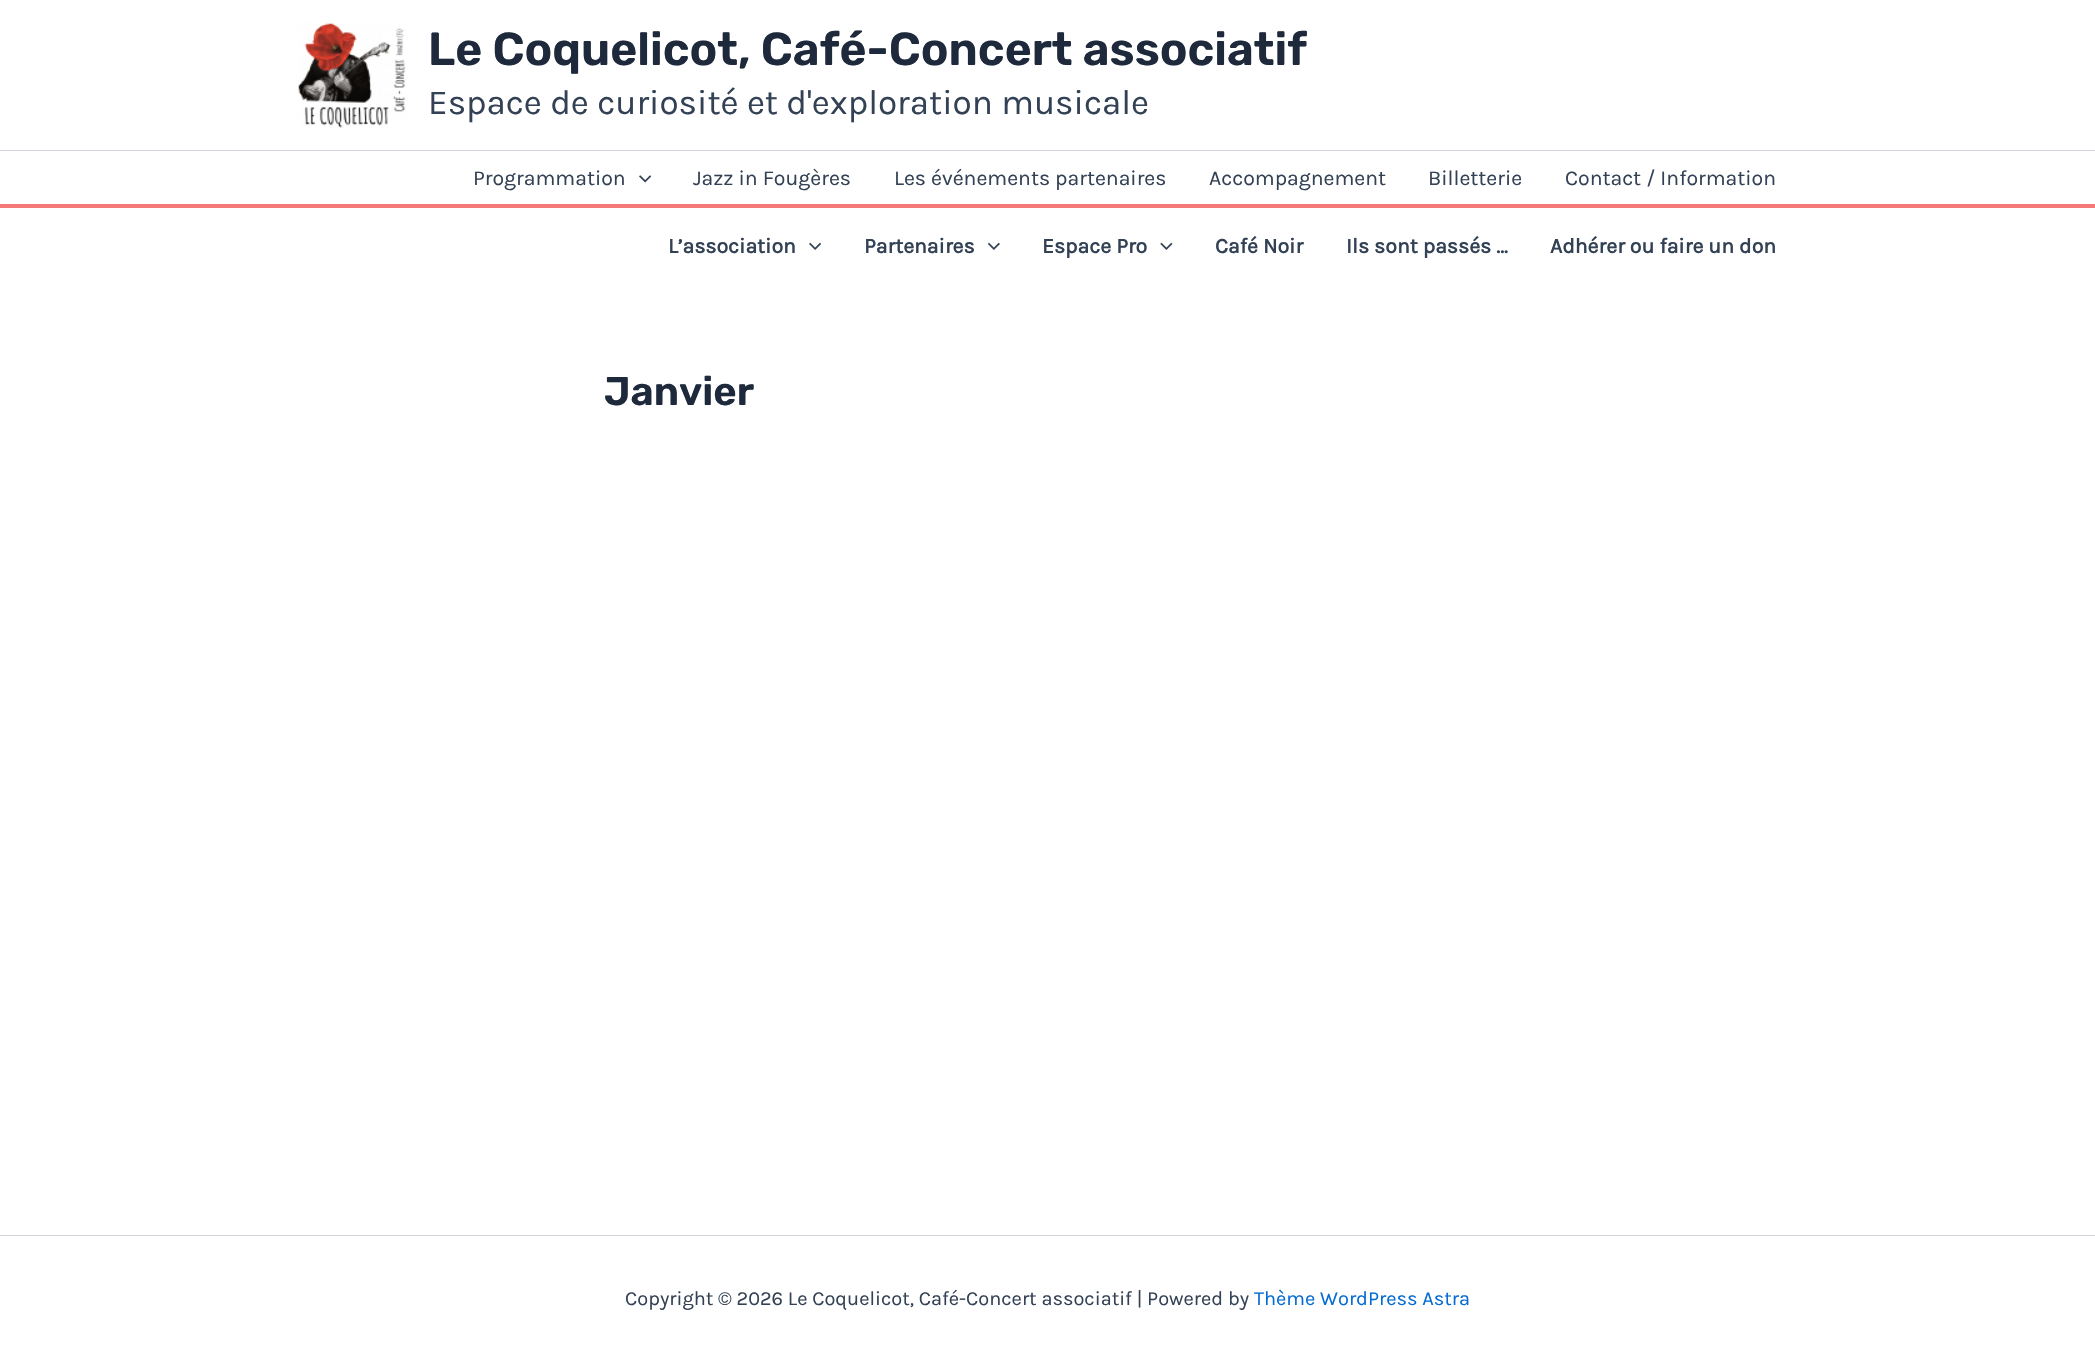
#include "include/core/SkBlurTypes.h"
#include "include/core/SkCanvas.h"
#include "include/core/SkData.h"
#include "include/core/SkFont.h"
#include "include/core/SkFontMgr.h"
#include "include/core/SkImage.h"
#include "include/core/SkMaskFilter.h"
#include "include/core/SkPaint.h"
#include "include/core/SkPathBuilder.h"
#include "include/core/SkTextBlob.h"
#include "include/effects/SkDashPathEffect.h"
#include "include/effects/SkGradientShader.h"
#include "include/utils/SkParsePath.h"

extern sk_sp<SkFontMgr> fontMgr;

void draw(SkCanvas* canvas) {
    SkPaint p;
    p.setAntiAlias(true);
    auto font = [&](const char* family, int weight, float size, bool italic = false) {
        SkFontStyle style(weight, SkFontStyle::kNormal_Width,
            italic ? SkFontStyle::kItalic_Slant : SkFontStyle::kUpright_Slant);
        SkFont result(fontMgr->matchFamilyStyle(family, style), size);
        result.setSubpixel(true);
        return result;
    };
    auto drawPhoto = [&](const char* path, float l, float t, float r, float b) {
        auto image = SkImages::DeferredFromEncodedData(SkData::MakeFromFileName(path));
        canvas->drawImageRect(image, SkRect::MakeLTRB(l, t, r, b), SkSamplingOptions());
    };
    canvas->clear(0xFFFFFFFF);
    p.setColor(0xFFD1D5DB);
    canvas->drawRect(SkRect::MakeLTRB(0, 150, 2095, 151), p);
    drawPhoto("media/1.png", 298, 22, 406, 128);
    auto font1 = font("Rubik", 600, 46.25f);
    p.setColor(0xFF1E293B);
    canvas->drawString("Le Coquelicot, Café-Concert associatif", 428, 65, font1, p);
    auto font2 = font("Karla", 400, 35);
    p.setColor(0xFF334155);
    canvas->drawString("Espace de curiosité et d'exploration musicale", 428, 114, font2, p);
    p.setColor(0xFFF67979);
    canvas->drawRect(SkRect::MakeLTRB(0, 204, 2095, 208), p);
    auto font3 = font("Karla", 400, 21.25f);
    p.setColor(0xFF334155);
    canvas->drawString("Programmation", 473, 185, font3, p);
    drawPhoto("media/2.png", 639, 175, 651, 183);
    {
        const struct { const char* s; float x, y; } items[] = {
            {"Jazz in Fougères", 693, 185},
            {"Les événements partenaires", 894, 185},
            {"Accompagnement", 1209, 185},
            {"Billetterie", 1428, 185},
            {"Contact / Information", 1565, 185},
        };
        for (auto [s, x, y] : items) {
            canvas->drawString(s, x, y, font3, p);
        }
    }
    auto font4 = font("Karla", 700, 21.25f);
    canvas->drawString("L’association", 668, 253, font4, p);
    drawPhoto("media/3.png", 809, 242, 821, 250);
    canvas->drawString("Partenaires", 864, 253, font4, p);
    drawPhoto("media/4.png", 988, 242, 1000, 250);
    canvas->drawString("Espace Pro", 1042, 253, font4, p);
    drawPhoto("media/5.png", 1160, 242, 1173, 250);
    {
        const struct { const char* s; float x, y; } items[] = {
            {"Café Noir", 1215, 253},
            {"Ils sont passés …", 1346, 253},
            {"Adhérer ou faire un don", 1550, 253},
        };
        for (auto [s, x, y] : items) {
            canvas->drawString(s, x, y, font4, p);
        }
    }
    auto font5 = font("Rubik", 600, 40);
    p.setColor(0xFF1E293B);
    canvas->drawString("Janvier", 604, 405, font5, p);
    p.setColor(0xFFD1D5DB);
    canvas->drawRect(SkRect::MakeLTRB(0, 1235, 2095, 1236), p);
    auto font6 = font("Karla", 400, 20);
    p.setColor(0xFF334155);
    canvas->drawString("Copyright © 2026 Le Coquelicot, Café-Concert associatif | Powered by", 625, 1305, font6, p);
    p.setColor(0xFF046BD2);
    canvas->drawString("Thème WordPress Astra", 1254, 1305, font6, p);
}
